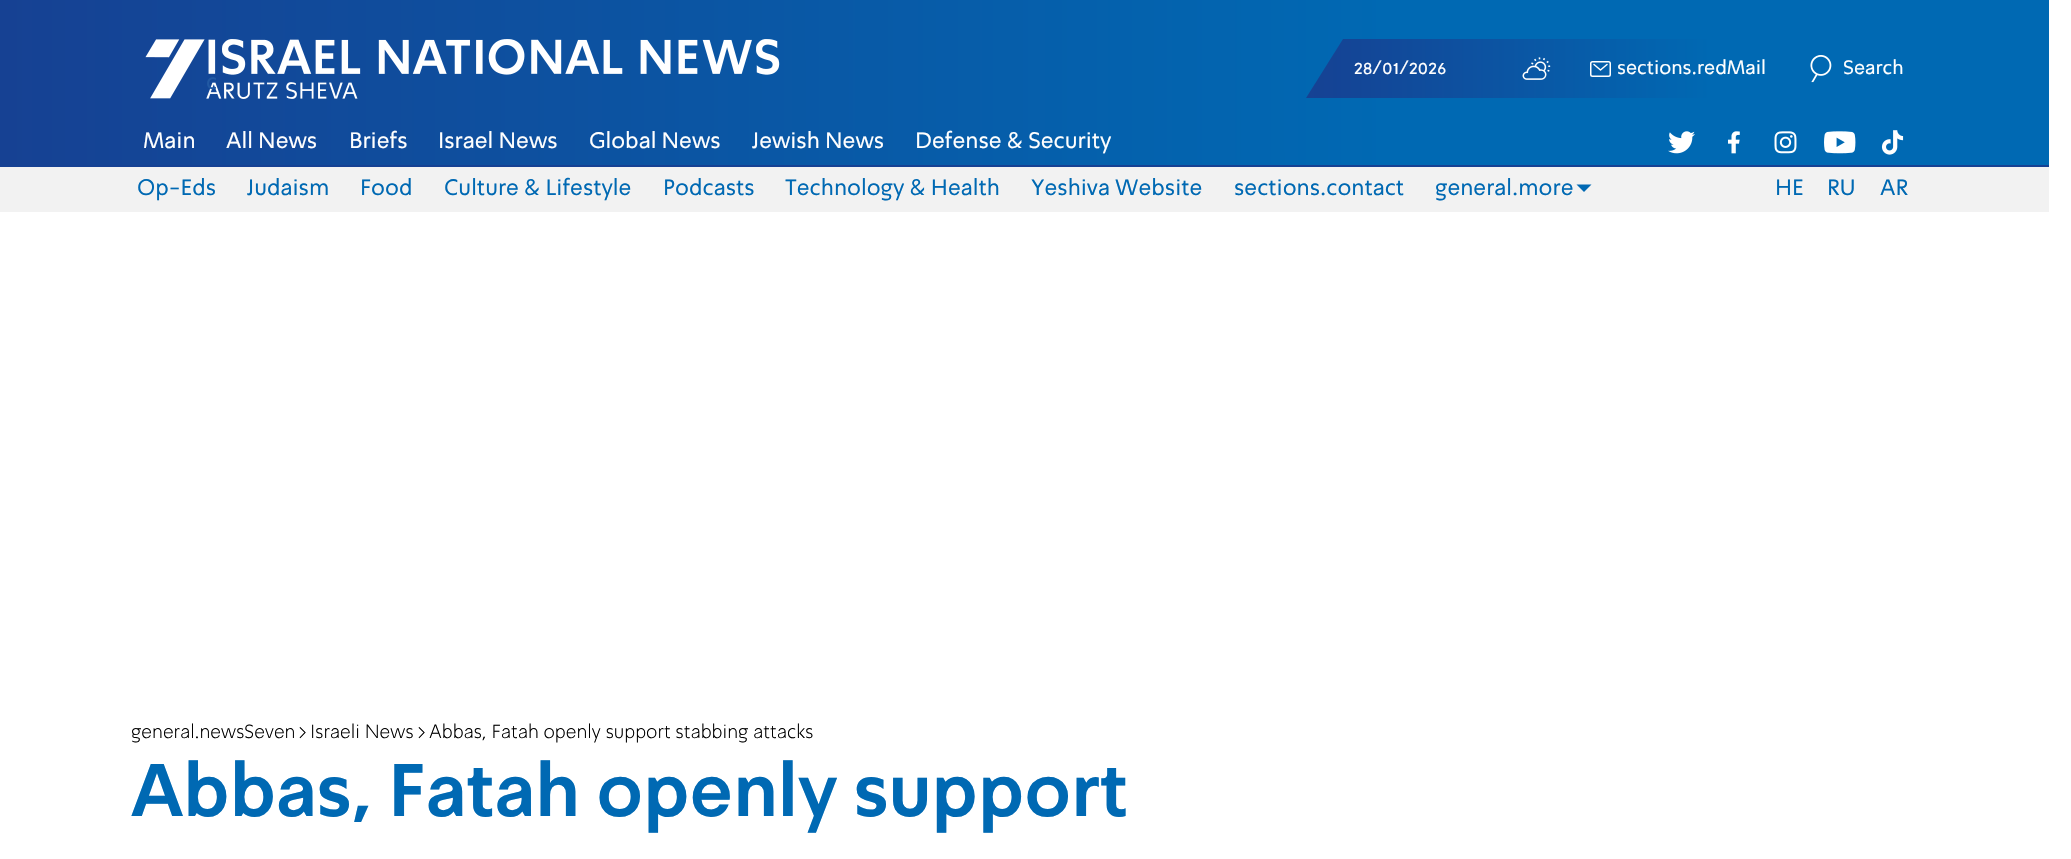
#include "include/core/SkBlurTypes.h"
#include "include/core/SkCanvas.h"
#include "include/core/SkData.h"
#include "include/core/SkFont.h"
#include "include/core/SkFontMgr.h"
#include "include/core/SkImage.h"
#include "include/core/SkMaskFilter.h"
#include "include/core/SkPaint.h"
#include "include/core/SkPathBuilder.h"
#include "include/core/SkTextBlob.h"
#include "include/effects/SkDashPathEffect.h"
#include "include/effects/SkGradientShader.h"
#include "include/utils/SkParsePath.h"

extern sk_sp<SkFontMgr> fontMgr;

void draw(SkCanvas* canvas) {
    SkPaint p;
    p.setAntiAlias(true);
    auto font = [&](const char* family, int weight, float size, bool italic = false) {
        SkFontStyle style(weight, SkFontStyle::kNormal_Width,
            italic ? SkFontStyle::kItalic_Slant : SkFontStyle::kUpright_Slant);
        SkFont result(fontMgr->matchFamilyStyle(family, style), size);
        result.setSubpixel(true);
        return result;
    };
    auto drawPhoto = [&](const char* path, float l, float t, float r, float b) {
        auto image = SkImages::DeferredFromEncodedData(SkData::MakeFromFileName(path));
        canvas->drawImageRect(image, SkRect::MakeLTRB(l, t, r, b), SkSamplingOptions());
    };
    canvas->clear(0xFFFFFFFF);
    p.setColor(0xFFF2F2F2);
    canvas->drawRect(SkRect::MakeLTRB(0, 167, 2049, 212), p);
    {
        const SkColor colors[] = {0xFF0069B3, 0xFF164193};
        const float stops[] = {0.32f, 1};
        const SkPoint ends[] = {{2049, 82}, {0, 83}};
        p.setShader(SkGradientShader::MakeLinear(ends, colors, stops, 2, SkTileMode::kClamp));
        p.setAlpha(255);
    }
    canvas->drawRect(SkRect::MakeLTRB(0, 0, 2049, 165), p);
    p.setShader(nullptr);
    p.setColor(0xFF164193);
    canvas->drawRect(SkRect::MakeLTRB(0, 165, 2049, 167), p);
    {
        const SkColor colors[] = {0xFF0069B3, 0xFF164193};
        const float stops[] = {0.32f, 1};
        const SkPoint ends[] = {{1904, 69}, {1305, 69}};
        p.setShader(SkGradientShader::MakeLinear(ends, colors, stops, 2, SkTileMode::kClamp));
        p.setAlpha(255);
    }
    canvas->drawPath(SkPathBuilder().moveTo(1904, 39).lineTo(1904, 98).lineTo(1306, 98).lineTo(1343, 39).close().detach(), p);
    auto font1 = font("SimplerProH", 400, 19.5f);
    p.setShader(nullptr);
    p.setColor(0xFFFFFFFF);
    canvas->drawString("28/01/2026", 1354, 74, font1, p);
    drawPhoto("media/1.png", 1522, 57, 1551, 80);
    p.setStyle(SkPaint::kStroke_Style);
    p.setStrokeWidth(1.5f);
    canvas->drawRoundRect(SkRect::MakeLTRB(1590.75f, 61.75f, 1610.25f, 76.25f), 1.75f, 1.75f, p);
    p.setStrokeCap(SkPaint::kRound_Cap);
    p.setStrokeJoin(SkPaint::kRound_Join);
    canvas->drawPath(SkPathBuilder().moveTo(1594, 64.5f).lineTo(1600.5f, 70).lineTo(1607, 64.5f).detach(), p);
    p.setStyle(SkPaint::kFill_Style);
    canvas->drawString("sections.redMail", 1617, 74, font1, p);
    drawPhoto("media/2.png", 1810, 55, 1832, 83);
    canvas->drawString("Search", 1843, 74, font1, p);
    drawPhoto("media/3.png", 145, 39, 780, 99);
    auto font2 = font("SimplerProH", 400, 22.5f);
    p.setColor(0xFF2159A3);
    canvas->drawString("c", 206, 89, font2, p);
    p.setColor(0xFFFFFFFF);
    {
        const struct { const char* s; float x, y; } items[] = {
            {"Main", 143, 148},
            {"All News", 226, 148},
            {"Briefs", 349, 148},
            {"Israel News", 438, 148},
            {"Global News", 589, 148},
            {"Jewish News", 752, 148},
            {"Defense & Security", 915, 148},
        };
        for (auto [s, x, y] : items) {
            canvas->drawString(s, x, y, font2, p);
        }
    }
    drawPhoto("media/4.png", 1668, 131, 1695, 154);
    drawPhoto("media/5.png", 1728, 131, 1740, 154);
    drawPhoto("media/6.png", 1774, 131, 1797, 154);
    drawPhoto("media/7.png", 1824, 131, 1856, 154);
    drawPhoto("media/8.png", 1881, 130, 1904, 155);
    p.setColor(0xFF0069B3);
    {
        const struct { const char* s; float x, y; } items[] = {
            {"Op-Eds", 137, 195},
            {"Judaism", 247, 195},
            {"Food", 360, 195},
            {"Culture & Lifestyle", 444, 195},
            {"Podcasts", 663, 195},
            {"Technology & Health", 785, 195},
            {"Yeshiva Website", 1031, 195},
            {"sections.contact", 1234, 195},
            {"general.more", 1435, 195},
        };
        for (auto [s, x, y] : items) {
            canvas->drawString(s, x, y, font2, p);
        }
    }
    canvas->drawPath(SkPathBuilder().moveTo(1576.5f, 184.5f).lineTo(1591.5f, 184.5f).lineTo(1584, 192).close().detach(), p);
    {
        const struct { const char* s; float x, y; } items[] = {
            {"HE", 1775, 195},
            {"RU", 1827, 195},
            {"AR", 1880, 195},
        };
        for (auto [s, x, y] : items) {
            canvas->drawString(s, x, y, font2, p);
        }
    }
    auto font3 = font("SimplerProH", 300, 19.5f);
    p.setColor(0xFF000000);
    {
        const struct { const char* s; float x, y; } items[] = {
            {"general.newsSeven", 131, 738},
            {">", 298, 738},
            {"Israeli News", 310, 738},
            {">", 417, 738},
            {"Abbas, Fatah openly support stabbing attacks", 429, 738},
        };
        for (auto [s, x, y] : items) {
            canvas->drawString(s, x, y, font3, p);
        }
    }
    auto font4 = font("SimplerProH", 700, 73);
    p.setColor(0xFF0069B3);
    canvas->drawString("Abbas, Fatah openly support", 131, 816, font4, p);
}
